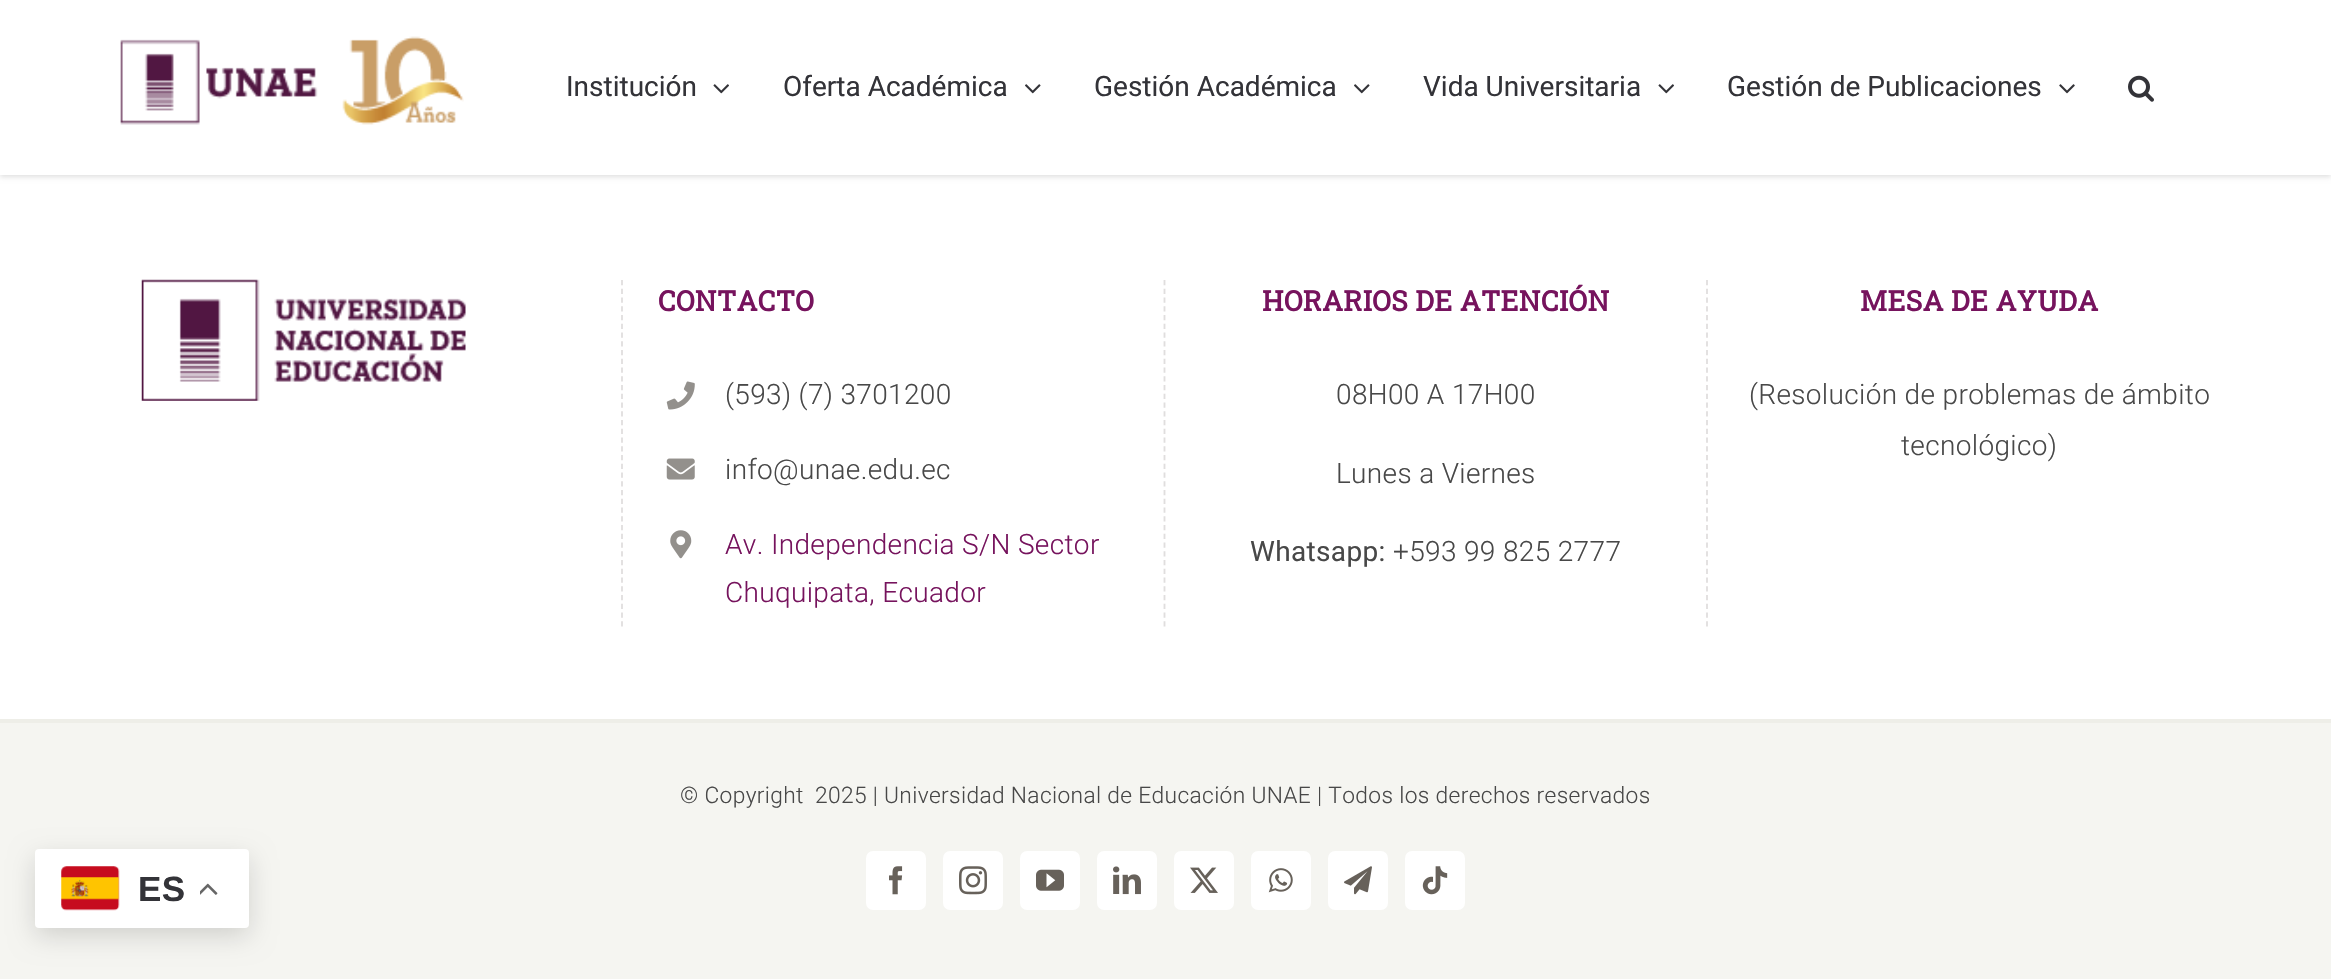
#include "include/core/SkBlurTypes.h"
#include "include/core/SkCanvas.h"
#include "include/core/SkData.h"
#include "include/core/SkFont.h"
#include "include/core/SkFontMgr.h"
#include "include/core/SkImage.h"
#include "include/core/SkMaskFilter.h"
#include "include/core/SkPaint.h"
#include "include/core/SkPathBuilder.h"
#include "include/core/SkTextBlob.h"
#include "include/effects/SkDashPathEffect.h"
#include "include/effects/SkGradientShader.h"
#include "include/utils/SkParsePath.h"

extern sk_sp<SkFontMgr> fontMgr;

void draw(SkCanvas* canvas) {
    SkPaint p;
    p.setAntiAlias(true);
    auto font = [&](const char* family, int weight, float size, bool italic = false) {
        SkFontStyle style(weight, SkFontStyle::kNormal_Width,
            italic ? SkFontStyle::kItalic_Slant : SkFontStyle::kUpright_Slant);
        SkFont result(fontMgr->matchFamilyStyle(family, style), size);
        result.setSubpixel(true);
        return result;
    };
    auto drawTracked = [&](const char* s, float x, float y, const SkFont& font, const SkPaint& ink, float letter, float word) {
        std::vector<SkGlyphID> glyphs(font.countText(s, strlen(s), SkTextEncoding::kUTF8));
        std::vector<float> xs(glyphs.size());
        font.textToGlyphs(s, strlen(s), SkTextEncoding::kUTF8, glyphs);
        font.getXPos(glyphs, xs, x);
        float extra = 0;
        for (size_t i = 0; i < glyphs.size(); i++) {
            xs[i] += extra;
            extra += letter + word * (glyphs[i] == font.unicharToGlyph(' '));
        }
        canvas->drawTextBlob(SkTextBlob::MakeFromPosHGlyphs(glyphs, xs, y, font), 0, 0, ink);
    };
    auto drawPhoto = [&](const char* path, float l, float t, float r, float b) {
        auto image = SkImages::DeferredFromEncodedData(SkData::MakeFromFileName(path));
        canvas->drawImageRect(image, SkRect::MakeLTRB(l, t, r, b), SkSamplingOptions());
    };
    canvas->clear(0xFFFFFFFF);
    p.setColor(0x1F000000);
    p.setMaskFilter(SkMaskFilter::MakeBlur(kNormal_SkBlurStyle, 2.5f));
    canvas->drawRect(SkRect::MakeLTRB(0, 2, 2331, 177), p);
    p.setMaskFilter(nullptr);
    p.setColor(0xFFFFFFFF);
    canvas->drawRect(SkRect::MakeLTRB(0, 0, 2331, 175), p);
    drawPhoto("media/1.png", 120, 36, 464, 125);
    auto font1 = font("Roboto", 400, 28);
    p.setColor(0xFF333338);
    canvas->drawString("Institución", 566, 96, font1, p);
    drawPhoto("media/2.png", 713, 84, 729, 94);
    canvas->drawString("Oferta Académica", 783, 96, font1, p);
    drawPhoto("media/3.png", 1025, 84, 1041, 94);
    canvas->drawString("Gestión Académica", 1094, 96, font1, p);
    drawPhoto("media/3.png", 1354, 84, 1370, 94);
    canvas->drawString("Vida Universitaria", 1423, 96, font1, p);
    drawPhoto("media/2.png", 1658, 84, 1674, 94);
    canvas->drawString("Gestión de Publicaciones", 1727, 96, font1, p);
    drawPhoto("media/4.png", 2059, 84, 2075, 94);
    drawPhoto("media/5.png", 2128, 75, 2154, 102);
    p.setStyle(SkPaint::kStroke_Style);
    p.setStrokeWidth(1.8f);
    p.setColor(0xFFE0DEDE);
    p.setPathEffect(SkDashPathEffect::Make({{5.25f, 3.5f}}, 0));
    canvas->drawPath(SkPathBuilder().moveTo(622, 280).lineTo(622, 626.5f).detach(), p);
    p.setPathEffect(nullptr);
    drawPhoto("media/6.png", 141, 279, 466, 401);
    p.setPathEffect(SkDashPathEffect::Make({{5.25f, 3.5f}}, 0));
    canvas->drawPath(SkPathBuilder().moveTo(1164.5f, 280).lineTo(1164.5f, 626.5f).detach(), p);
    p.setPathEffect(nullptr);
    auto font2 = font("Roboto Slab", 700, 28);
    p.setStyle(SkPaint::kFill_Style);
    p.setColor(0xFF76135D);
    drawTracked("CONTACTO", 658, 311, font2, p, 0.35f, 0);
    drawPhoto("media/7.png", 666, 381, 695, 410);
    auto font3 = font("Roboto", 300, 28);
    p.setColor(0xFF484848);
    drawTracked("(593) (7) 3701200", 725, 404, font3, p, 0.35f, 0);
    drawPhoto("media/8.png", 666, 458, 695, 480);
    drawTracked("info@unae.edu.ec", 725, 479, font3, p, 0.35f, 0);
    drawPhoto("media/9.png", 670, 530, 692, 559);
    p.setColor(0xFF76135D);
    drawTracked("Av. Independencia S/N Sector", 725, 554, font3, p, 0.35f, 0);
    drawTracked("Chuquipata, Ecuador", 725, 602, font3, p, 0.35f, 0);
    p.setStyle(SkPaint::kStroke_Style);
    p.setColor(0xFFE0DEDE);
    p.setPathEffect(SkDashPathEffect::Make({{5.25f, 3.5f}}, 0));
    canvas->drawPath(SkPathBuilder().moveTo(1707, 280).lineTo(1707, 626.5f).detach(), p);
    p.setPathEffect(nullptr);
    p.setStyle(SkPaint::kFill_Style);
    p.setColor(0xFF76135D);
    drawTracked("HORARIOS DE ATENCIÓN", 1262, 311, font2, p, 0.35f, 0);
    p.setColor(0xFF484848);
    drawTracked("08H00 A 17H00", 1336, 404, font3, p, 0.35f, 0);
    drawTracked("Lunes a Viernes", 1336, 483, font3, p, 0.35f, 0);
    drawTracked("Whatsapp:", 1250, 561, font1, p, 0.35f, 0);
    drawTracked("+593 99 825 2777", 1393, 561, font3, p, 0.35f, 0);
    p.setColor(0xFF76135D);
    drawTracked("MESA DE AYUDA", 1860, 311, font2, p, 0.35f, 0);
    p.setColor(0xFF484848);
    drawTracked("(Resolución de problemas de ámbito", 1749, 404, font3, p, 0.35f, 0);
    drawTracked("tecnológico)", 1901, 455, font3, p, 0.35f, 0);
    p.setColor(0xFFF5F5F1);
    canvas->drawRect(SkRect::MakeLTRB(0, 723, 2331, 979), p);
    p.setColor(0xFFEEEEE8);
    canvas->drawRect(SkRect::MakeLTRB(0, 719, 2331, 723), p);
    auto font4 = font("Roboto", 300, 22.75f);
    p.setColor(0xFF484848);
    drawTracked("© Copyright", 680, 803, font4, p, 0.35f, 0);
    drawTracked("2025 | Universidad Nacional de Educación UNAE | Todos los derechos reservados", 815, 803, font4, p, 0.35f, 0);
    p.setColor(0xFFFFFFFF);
    canvas->drawRoundRect(SkRect::MakeLTRB(867, 852, 925, 909), 6, 6, p);
    p.setStyle(SkPaint::kStroke_Style);
    p.setStrokeWidth(2);
    canvas->drawRoundRect(SkRect::MakeLTRB(867, 852, 925, 909), 6, 6, p);
    drawPhoto("media/10.png", 889, 866, 903, 895);
    p.setStyle(SkPaint::kFill_Style);
    canvas->drawRoundRect(SkRect::MakeLTRB(944, 852, 1002, 909), 6, 6, p);
    p.setStyle(SkPaint::kStroke_Style);
    canvas->drawRoundRect(SkRect::MakeLTRB(944, 852, 1002, 909), 6, 6, p);
    drawPhoto("media/11.png", 959, 866, 987, 895);
    p.setStyle(SkPaint::kFill_Style);
    canvas->drawRoundRect(SkRect::MakeLTRB(1021, 852, 1079, 909), 6, 6, p);
    p.setStyle(SkPaint::kStroke_Style);
    canvas->drawRoundRect(SkRect::MakeLTRB(1021, 852, 1079, 909), 6, 6, p);
    drawPhoto("media/12.png", 1036, 869, 1064, 891);
    p.setStyle(SkPaint::kFill_Style);
    canvas->drawRoundRect(SkRect::MakeLTRB(1098, 852, 1156, 909), 6, 6, p);
    p.setStyle(SkPaint::kStroke_Style);
    canvas->drawRoundRect(SkRect::MakeLTRB(1098, 852, 1156, 909), 6, 6, p);
    drawPhoto("media/13.png", 1113, 866, 1141, 895);
    p.setStyle(SkPaint::kFill_Style);
    canvas->drawRoundRect(SkRect::MakeLTRB(1175, 852, 1233, 909), 6, 6, p);
    p.setStyle(SkPaint::kStroke_Style);
    canvas->drawRoundRect(SkRect::MakeLTRB(1175, 852, 1233, 909), 6, 6, p);
    drawPhoto("media/14.png", 1190, 867, 1218, 893);
    p.setStyle(SkPaint::kFill_Style);
    canvas->drawRoundRect(SkRect::MakeLTRB(1252, 852, 1310, 909), 6, 6, p);
    p.setStyle(SkPaint::kStroke_Style);
    canvas->drawRoundRect(SkRect::MakeLTRB(1252, 852, 1310, 909), 6, 6, p);
    drawPhoto("media/15.png", 1268, 868, 1293, 893);
    p.setStyle(SkPaint::kFill_Style);
    canvas->drawRoundRect(SkRect::MakeLTRB(1329, 852, 1387, 909), 6, 6, p);
    p.setStyle(SkPaint::kStroke_Style);
    canvas->drawRoundRect(SkRect::MakeLTRB(1329, 852, 1387, 909), 6, 6, p);
    drawPhoto("media/16.png", 1344, 866, 1372, 895);
    p.setStyle(SkPaint::kFill_Style);
    canvas->drawRoundRect(SkRect::MakeLTRB(1406, 852, 1464, 909), 6, 6, p);
    p.setStyle(SkPaint::kStroke_Style);
    canvas->drawRoundRect(SkRect::MakeLTRB(1406, 852, 1464, 909), 6, 6, p);
    drawPhoto("media/17.png", 1422, 866, 1448, 895);
    p.setStyle(SkPaint::kFill_Style);
    p.setColor(0x26000000);
    p.setMaskFilter(SkMaskFilter::MakeBlur(kNormal_SkBlurStyle, 13));
    canvas->drawRoundRect(SkRect::MakeLTRB(35, 858, 249, 936), 4, 4, p);
    p.setMaskFilter(nullptr);
    p.setColor(0xFFFFFFFF);
    canvas->drawRoundRect(SkRect::MakeLTRB(35, 849, 249, 928), 4, 4, p);
    drawPhoto("media/18.png", 61, 866, 120, 911);
    auto font5 = font("Liberation Sans", 700, 35);
    p.setColor(0xFF333338);
    drawTracked("ES", 138, 901, font5, p, 0.35f, 0);
    drawPhoto("media/19.png", 200, 883, 218, 895);
}
